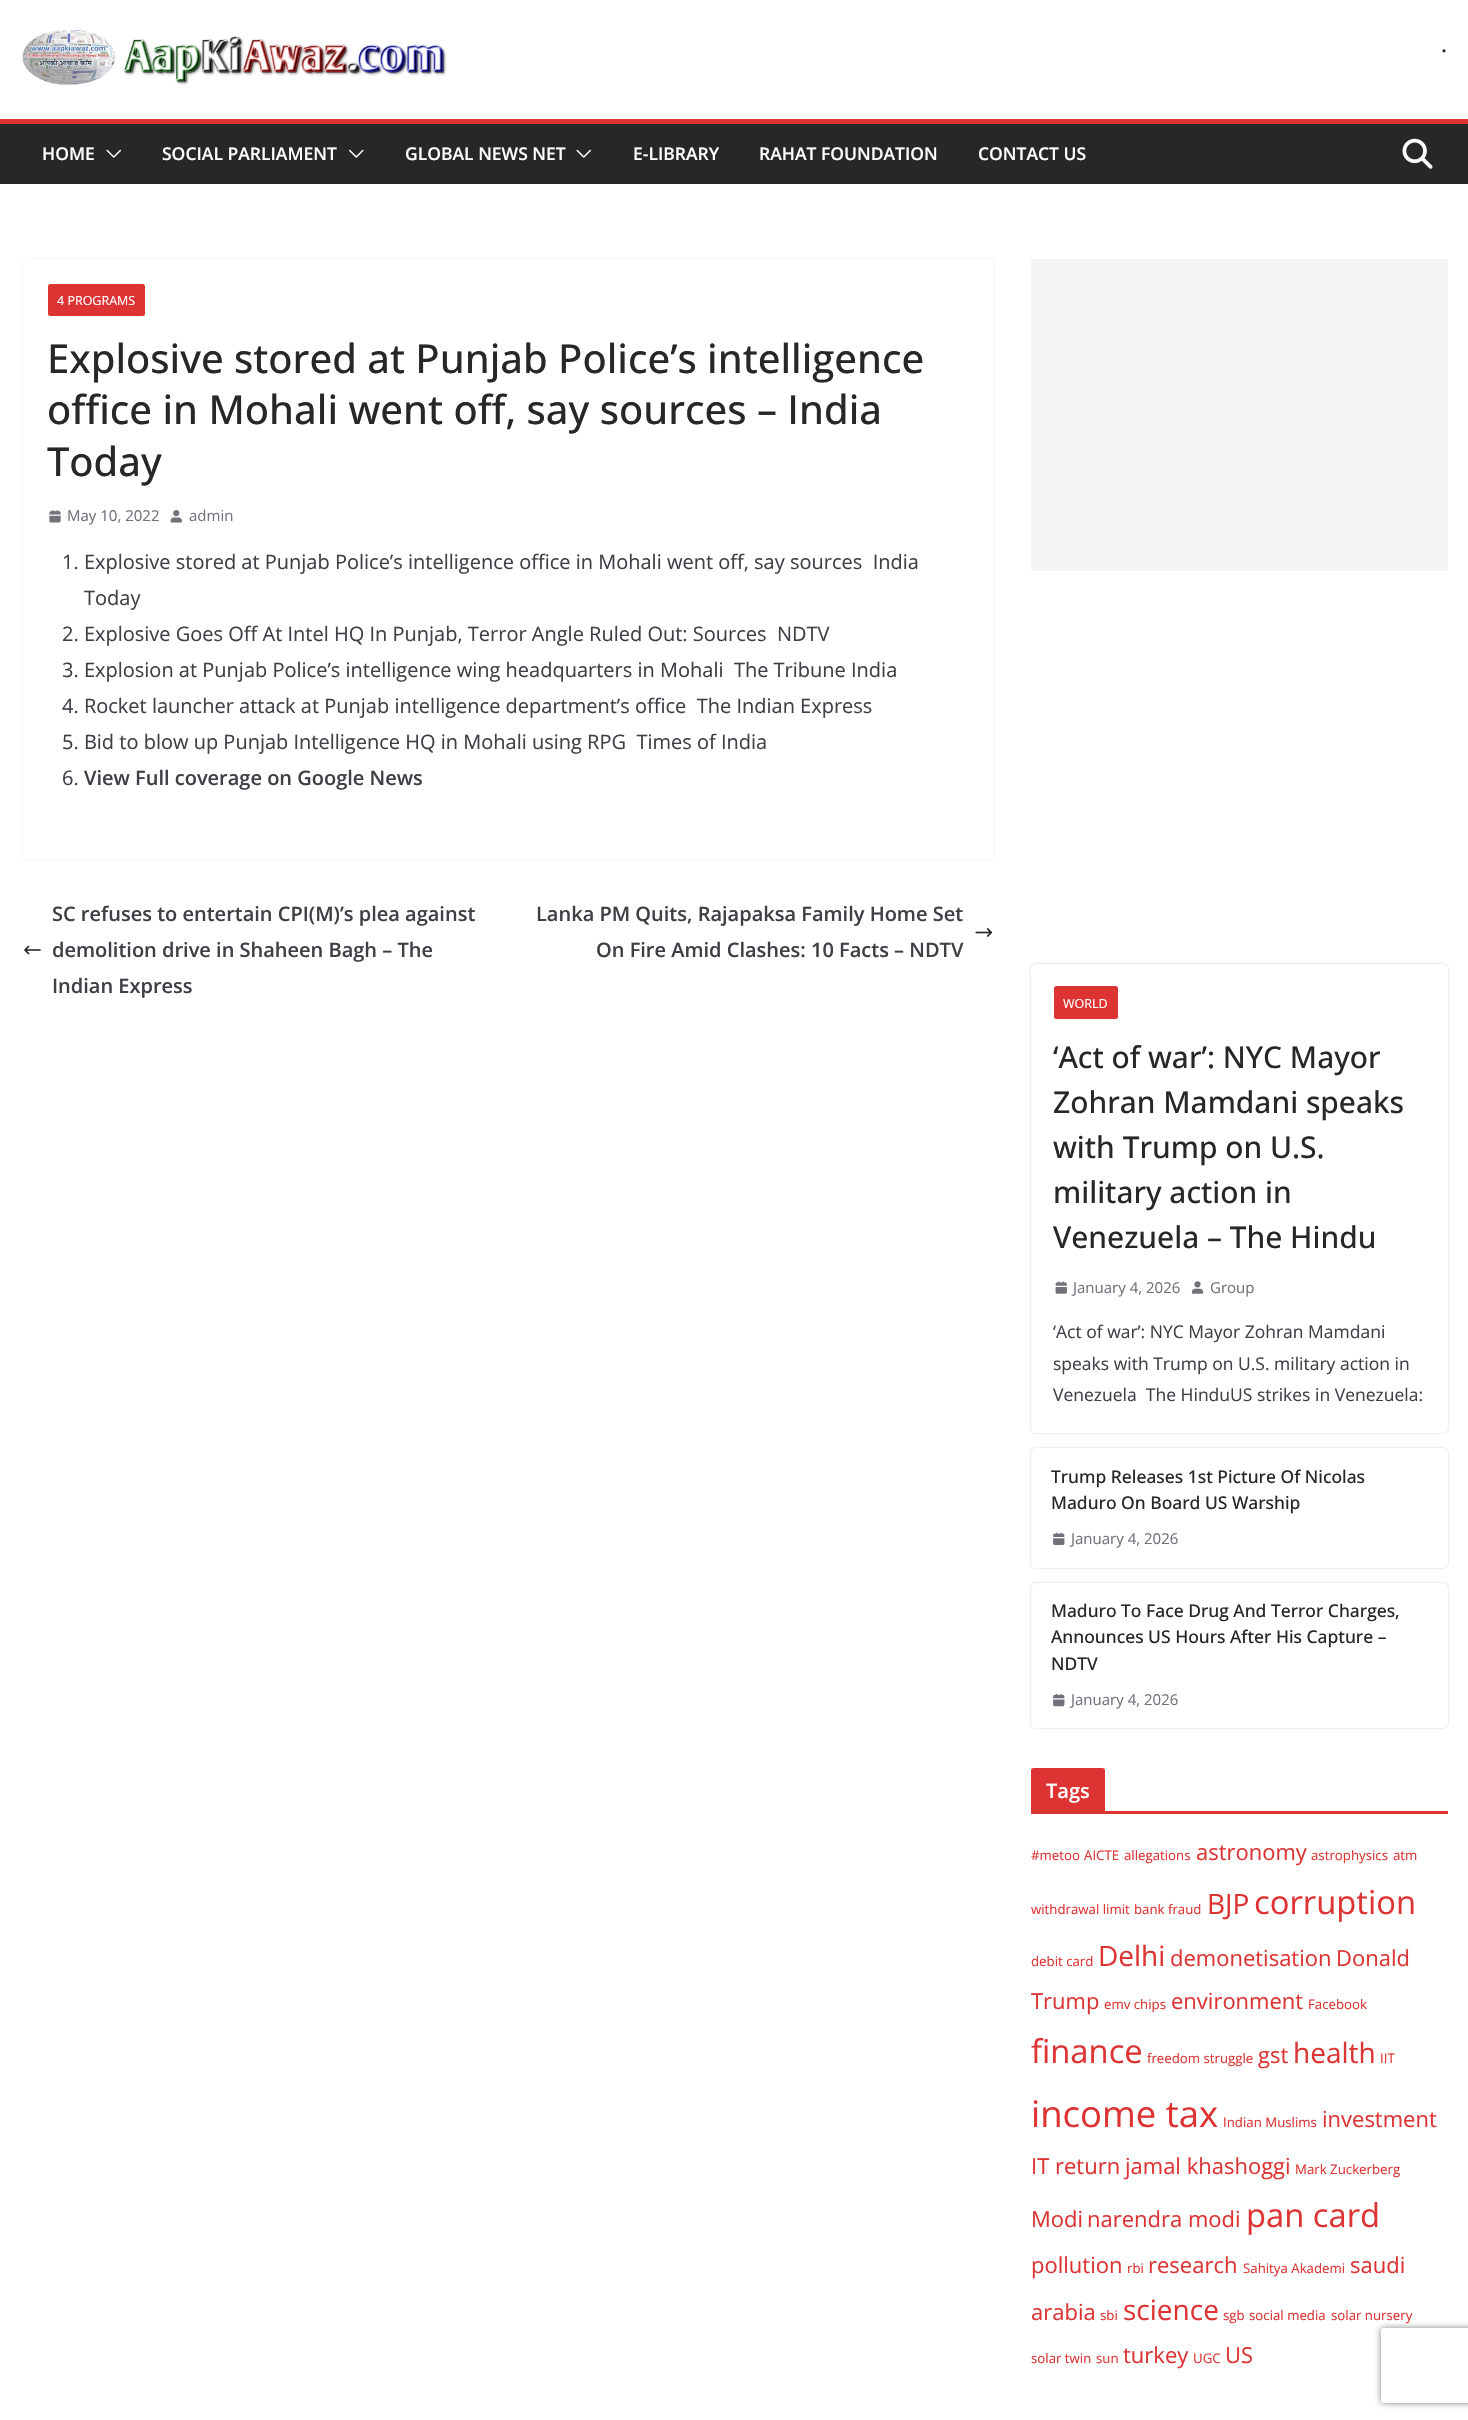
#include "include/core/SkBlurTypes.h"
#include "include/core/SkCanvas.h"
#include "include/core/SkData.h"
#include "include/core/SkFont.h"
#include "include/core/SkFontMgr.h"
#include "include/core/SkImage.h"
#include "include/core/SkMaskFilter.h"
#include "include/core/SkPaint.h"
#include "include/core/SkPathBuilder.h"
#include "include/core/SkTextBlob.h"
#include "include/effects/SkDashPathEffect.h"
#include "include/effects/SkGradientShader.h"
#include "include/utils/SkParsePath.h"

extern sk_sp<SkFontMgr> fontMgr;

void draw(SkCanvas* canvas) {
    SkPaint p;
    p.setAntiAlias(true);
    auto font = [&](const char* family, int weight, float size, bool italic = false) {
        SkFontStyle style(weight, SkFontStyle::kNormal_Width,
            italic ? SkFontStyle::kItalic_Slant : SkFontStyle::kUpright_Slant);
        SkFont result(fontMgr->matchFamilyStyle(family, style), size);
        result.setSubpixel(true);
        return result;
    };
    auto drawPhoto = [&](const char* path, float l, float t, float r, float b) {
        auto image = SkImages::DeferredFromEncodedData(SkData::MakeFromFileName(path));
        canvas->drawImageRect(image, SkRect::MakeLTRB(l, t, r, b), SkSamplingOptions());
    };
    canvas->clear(0xFFFFFFFF);
    drawPhoto("media/1.png", 22, 30, 447, 85);
    auto font1 = font("Open Sans", 500, 22);
    p.setColor(0xFF27272A);
    canvas->drawString(".", 1441, 52, font1, p);
    canvas->drawRect(SkRect::MakeLTRB(0, 124, 1468, 184), p);
    p.setColor(0xFFDD3333);
    canvas->drawRect(SkRect::MakeLTRB(0, 119, 1468, 124), p);
    auto font2 = font("Open Sans", 600, 17.5f);
    p.setColor(0xFFFFFFFF);
    canvas->drawString("HOME", 42, 160, font2, p);
    drawPhoto("media/2.png", 106, 149, 121, 158);
    canvas->drawString("SOCIAL PARLIAMENT", 162, 160, font2, p);
    drawPhoto("media/3.png", 349, 149, 364, 158);
    canvas->drawString("GLOBAL NEWS NET", 405, 160, font2, p);
    drawPhoto("media/2.png", 576, 149, 591, 158);
    {
        const struct { const char* s; float x, y; } items[] = {
            {"E-LIBRARY", 633, 160},
            {"RAHAT FOUNDATION", 759, 160},
            {"CONTACT US", 978, 160},
        };
        for (auto [s, x, y] : items) {
            canvas->drawString(s, x, y, font2, p);
        }
    }
    drawPhoto("media/4.png", 1402, 138, 1433, 169);
    canvas->save();
    canvas->clipPath(SkPathBuilder(SkPathFillType::kEvenOdd).moveTo(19, 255).lineTo(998, 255).lineTo(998, 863).lineTo(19, 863).close().moveTo(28, 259).lineTo(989, 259).cubicTo(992, 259, 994, 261, 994, 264).lineTo(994, 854).cubicTo(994, 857, 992, 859, 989, 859).lineTo(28, 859).cubicTo(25, 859, 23, 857, 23, 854).lineTo(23, 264).cubicTo(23, 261, 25, 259, 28, 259).close().detach(), true);
    p.setColor(0xFFE4E4E7);
    p.setMaskFilter(SkMaskFilter::MakeBlur(kNormal_SkBlurStyle, 1));
    canvas->drawRoundRect(SkRect::MakeLTRB(23, 259, 994, 859), 5, 5, p);
    p.setMaskFilter(nullptr);
    canvas->restore();
    p.setColor(0xFFDD3333);
    canvas->drawRoundRect(SkRect::MakeLTRB(48, 284, 145, 316), 2.5f, 2.5f, p);
    auto font3 = font("Open Sans", 400, 12.5f);
    p.setColor(0xFFFFFFFF);
    canvas->drawString("4 PROGRAMS", 57, 305, font3, p);
    auto font4 = font("Open Sans", 500, 40);
    p.setColor(0xFF27272A);
    {
        const struct { const char* s; float x, y; } items[] = {
            {"Explosive stored at Punjab Police’s intelligence", 47, 373},
            {"office in Mohali went off, say sources – India", 47, 424},
            {"Today", 47, 476},
        };
        for (auto [s, x, y] : items) {
            canvas->drawString(s, x, y, font4, p);
        }
    }
    drawPhoto("media/5.png", 49, 510, 61, 523);
    auto font5 = font("Open Sans", 400, 15);
    p.setColor(0xFF71717A);
    canvas->drawString("May 10, 2022", 67, 521, font5, p);
    drawPhoto("media/6.png", 170, 510, 182, 523);
    canvas->drawString("admin", 189, 521, font5, p);
    auto font6 = font("Open Sans", 400, 20);
    p.setColor(0xFF3F3F46);
    {
        const struct { const char* s; float x, y; } items[] = {
            {"1. Explosive stored at Punjab Police’s intelligence office in Mohali went off, say sources  India", 62, 569},
            {"Today", 84, 605},
            {"2. Explosive Goes Off At Intel HQ In Punjab, Terror Angle Ruled Out: Sources  NDTV", 62, 641},
            {"3. Explosion at Punjab Police’s intelligence wing headquarters in Mohali  The Tribune India", 62, 677},
            {"4. Rocket launcher attack at Punjab intelligence department’s office  The Indian Express", 62, 713},
            {"5. Bid to blow up Punjab Intelligence HQ in Mohali using RPG  Times of India", 62, 749},
            {"6.", 62, 785},
        };
        for (auto [s, x, y] : items) {
            canvas->drawString(s, x, y, font6, p);
        }
    }
    auto font7 = font("Open Sans", 600, 20);
    canvas->drawString("View Full coverage on Google News", 84, 785, font7, p);
    canvas->drawString("SC refuses to entertain CPI(M)’s plea against", 52, 921, font7, p);
    drawPhoto("media/7.png", 24, 945, 41, 955);
    {
        const struct { const char* s; float x, y; } items[] = {
            {"demolition drive in Shaheen Bagh – The", 52, 957},
            {"Indian Express", 52, 993},
            {"Lanka PM Quits, Rajapaksa Family Home Set", 536, 921},
        };
        for (auto [s, x, y] : items) {
            canvas->drawString(s, x, y, font7, p);
        }
    }
    drawPhoto("media/8.png", 975, 928, 992, 937);
    canvas->drawString("On Fire Amid Clashes: 10 Facts – NDTV", 596, 957, font7, p);
    p.setColor(0xFFF4F4F5);
    canvas->drawRect(SkRect::MakeLTRB(1031, 259, 1448, 571), p);
    canvas->save();
    canvas->clipPath(SkPathBuilder(SkPathFillType::kEvenOdd).moveTo(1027, 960).lineTo(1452, 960).lineTo(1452, 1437).lineTo(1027, 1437).close().moveTo(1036, 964).lineTo(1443, 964).cubicTo(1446, 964, 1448, 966, 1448, 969).lineTo(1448, 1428).cubicTo(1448, 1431, 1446, 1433, 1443, 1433).lineTo(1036, 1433).cubicTo(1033, 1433, 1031, 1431, 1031, 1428).lineTo(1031, 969).cubicTo(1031, 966, 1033, 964, 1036, 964).close().detach(), true);
    p.setColor(0x3D000000);
    p.setMaskFilter(SkMaskFilter::MakeBlur(kNormal_SkBlurStyle, 1));
    canvas->drawRoundRect(SkRect::MakeLTRB(1031, 964, 1448, 1433), 5, 5, p);
    p.setMaskFilter(nullptr);
    canvas->restore();
    p.setColor(0xFFDD3333);
    canvas->drawRoundRect(SkRect::MakeLTRB(1054, 986, 1118, 1019), 2.5f, 2.5f, p);
    p.setColor(0xFFFFFFFF);
    canvas->drawString("WORLD", 1063, 1008, font3, p);
    auto font8 = font("Open Sans", 500, 30);
    p.setColor(0xFF27272A);
    {
        const struct { const char* s; float x, y; } items[] = {
            {"‘Act of war’: NYC Mayor", 1053, 1068},
            {"Zohran Mamdani speaks", 1053, 1113},
            {"with Trump on U.S.", 1053, 1158},
            {"military action in", 1053, 1203},
            {"Venezuela – The Hindu", 1053, 1248},
        };
        for (auto [s, x, y] : items) {
            canvas->drawString(s, x, y, font8, p);
        }
    }
    drawPhoto("media/9.png", 1055, 1281, 1067, 1294);
    p.setColor(0xFF71717A);
    canvas->drawString("January 4, 2026", 1073, 1293, font5, p);
    drawPhoto("media/10.png", 1191, 1281, 1204, 1294);
    canvas->drawString("Group", 1210, 1293, font5, p);
    auto font9 = font("Open Sans", 400, 17.5f);
    p.setColor(0xFF3F3F46);
    {
        const struct { const char* s; float x, y; } items[] = {
            {"‘Act of war’: NYC Mayor Zohran Mamdani", 1053, 1338},
            {"speaks with Trump on U.S. military action in", 1053, 1370},
            {"Venezuela  The HinduUS strikes in Venezuela:", 1053, 1401},
        };
        for (auto [s, x, y] : items) {
            canvas->drawString(s, x, y, font9, p);
        }
    }
    canvas->save();
    canvas->clipPath(SkPathBuilder(SkPathFillType::kEvenOdd).moveTo(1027, 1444).lineTo(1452, 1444).lineTo(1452, 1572).lineTo(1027, 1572).close().moveTo(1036, 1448).lineTo(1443, 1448).cubicTo(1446, 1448, 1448, 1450, 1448, 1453).lineTo(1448, 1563).cubicTo(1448, 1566, 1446, 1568, 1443, 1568).lineTo(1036, 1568).cubicTo(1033, 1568, 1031, 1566, 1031, 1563).lineTo(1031, 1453).cubicTo(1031, 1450, 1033, 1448, 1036, 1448).close().detach(), true);
    p.setColor(0x3D000000);
    p.setMaskFilter(SkMaskFilter::MakeBlur(kNormal_SkBlurStyle, 1));
    canvas->drawRoundRect(SkRect::MakeLTRB(1031, 1448, 1448, 1568), 5, 5, p);
    p.setMaskFilter(nullptr);
    canvas->restore();
    auto font10 = font("Open Sans", 500, 17.5f);
    p.setColor(0xFF27272A);
    canvas->drawString("Trump Releases 1st Picture Of Nicolas", 1051, 1483, font10, p);
    canvas->drawString("Maduro On Board US Warship", 1051, 1509, font10, p);
    drawPhoto("media/11.png", 1053, 1532, 1065, 1545);
    p.setColor(0xFF71717A);
    canvas->drawString("January 4, 2026", 1071, 1544, font5, p);
    canvas->save();
    canvas->clipPath(SkPathBuilder(SkPathFillType::kEvenOdd).moveTo(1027, 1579).lineTo(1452, 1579).lineTo(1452, 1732).lineTo(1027, 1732).close().moveTo(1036, 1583).lineTo(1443, 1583).cubicTo(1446, 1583, 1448, 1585, 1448, 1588).lineTo(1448, 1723).cubicTo(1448, 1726, 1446, 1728, 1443, 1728).lineTo(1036, 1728).cubicTo(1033, 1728, 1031, 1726, 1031, 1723).lineTo(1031, 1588).cubicTo(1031, 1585, 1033, 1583, 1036, 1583).close().detach(), true);
    p.setColor(0x3D000000);
    p.setMaskFilter(SkMaskFilter::MakeBlur(kNormal_SkBlurStyle, 1));
    canvas->drawRoundRect(SkRect::MakeLTRB(1031, 1583, 1448, 1728), 5, 5, p);
    p.setMaskFilter(nullptr);
    canvas->restore();
    p.setColor(0xFF27272A);
    {
        const struct { const char* s; float x, y; } items[] = {
            {"Maduro To Face Drug And Terror Charges,", 1051, 1617},
            {"Announces US Hours After His Capture –", 1051, 1643},
            {"NDTV", 1051, 1670},
        };
        for (auto [s, x, y] : items) {
            canvas->drawString(s, x, y, font10, p);
        }
    }
    drawPhoto("media/12.png", 1053, 1693, 1065, 1707);
    p.setColor(0xFF71717A);
    canvas->drawString("January 4, 2026", 1071, 1705, font5, p);
    p.setColor(0xFFDD3333);
    canvas->drawRect(SkRect::MakeLTRB(1031, 1811, 1448, 1814), p);
    canvas->drawPath(SkPathBuilder().moveTo(1033.5f, 1768).lineTo(1102.5f, 1768).cubicTo(1104, 1768, 1105, 1769, 1105, 1770.5f).lineTo(1105, 1811).lineTo(1031, 1811).lineTo(1031, 1770.5f).cubicTo(1031, 1769, 1032, 1768, 1033.5f, 1768).close().detach(), p);
    p.setColor(0xFFFFFFFF);
    canvas->drawString("Tags", 1046, 1798, font7, p);
    auto font11 = font("Open Sans", 400, 13.25f);
    p.setColor(0xFFDD3333);
    {
        const struct { const char* s; float x, y; } items[] = {
            {"#metoo", 1031, 1860},
            {"AICTE", 1084, 1860},
            {"allegations", 1124, 1860},
        };
        for (auto [s, x, y] : items) {
            canvas->drawString(s, x, y, font11, p);
        }
    }
    auto font12 = font("Open Sans", 400, 22);
    canvas->drawString("astronomy", 1196, 1860, font12, p);
    {
        const struct { const char* s; float x, y; } items[] = {
            {"astrophysics", 1311, 1860},
            {"atm", 1393, 1860},
            {"withdrawal limit", 1031, 1914},
            {"bank fraud", 1134, 1914},
        };
        for (auto [s, x, y] : items) {
            canvas->drawString(s, x, y, font11, p);
        }
    }
    auto font13 = font("Open Sans", 400, 28);
    canvas->drawString("BJP", 1207, 1914, font13, p);
    auto font14 = font("Open Sans", 400, 32.75f);
    canvas->drawString("corruption", 1254, 1914, font14, p);
    canvas->drawString("debit card", 1031, 1966, font11, p);
    canvas->drawString("Delhi", 1098, 1966, font13, p);
    {
        const struct { const char* s; float x, y; } items[] = {
            {"demonetisation", 1170, 1966},
            {"Donald", 1336, 1966},
            {"Trump", 1031, 2009},
        };
        for (auto [s, x, y] : items) {
            canvas->drawString(s, x, y, font12, p);
        }
    }
    canvas->drawString("emv chips", 1104, 2009, font11, p);
    canvas->drawString("environment", 1171, 2009, font12, p);
    canvas->drawString("Facebook", 1308, 2009, font11, p);
    canvas->drawString("finance", 1031, 2063, font14, p);
    canvas->drawString("freedom struggle", 1147, 2063, font11, p);
    canvas->drawString("gst", 1258, 2063, font12, p);
    canvas->drawString("health", 1293, 2063, font13, p);
    canvas->drawString("IIT", 1380, 2063, font11, p);
    auto font15 = font("Open Sans", 400, 36.5f);
    canvas->drawString("income tax", 1031, 2127, font15, p);
    canvas->drawString("Indian Muslims", 1223, 2127, font11, p);
    {
        const struct { const char* s; float x, y; } items[] = {
            {"investment", 1322, 2127},
            {"IT return", 1031, 2174},
            {"jamal khashoggi", 1125, 2174},
        };
        for (auto [s, x, y] : items) {
            canvas->drawString(s, x, y, font12, p);
        }
    }
    canvas->drawString("Mark Zuckerberg", 1295, 2174, font11, p);
    canvas->drawString("Modi", 1031, 2227, font12, p);
    canvas->drawString("narendra modi", 1087, 2227, font12, p);
    canvas->drawString("pan card", 1246, 2227, font14, p);
    canvas->drawString("pollution", 1031, 2273, font12, p);
    canvas->drawString("rbi", 1127, 2273, font11, p);
    canvas->drawString("research", 1148, 2273, font12, p);
    canvas->drawString("Sahitya Akademi", 1243, 2273, font11, p);
    canvas->drawString("saudi", 1350, 2273, font12, p);
    canvas->drawString("arabia", 1031, 2320, font12, p);
    canvas->drawString("sbi", 1100, 2320, font11, p);
    canvas->drawString("science", 1123, 2320, font13, p);
    {
        const struct { const char* s; float x, y; } items[] = {
            {"sgb", 1223, 2320},
            {"social media", 1249, 2320},
            {"solar nursery", 1331, 2320},
            {"solar twin", 1031, 2363},
            {"sun", 1096, 2363},
        };
        for (auto [s, x, y] : items) {
            canvas->drawString(s, x, y, font11, p);
        }
    }
    canvas->drawString("turkey", 1123, 2363, font12, p);
    canvas->drawString("UGC", 1193, 2363, font11, p);
    canvas->drawString("US", 1225, 2363, font12, p);
    canvas->save();
    canvas->clipPath(SkPathBuilder(SkPathFillType::kEvenOdd).moveTo(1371, 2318).lineTo(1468, 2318).lineTo(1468, 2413).lineTo(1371, 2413).close().moveTo(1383.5f, 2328).lineTo(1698.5f, 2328).cubicTo(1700, 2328, 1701, 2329, 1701, 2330.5f).lineTo(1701, 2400.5f).cubicTo(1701, 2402, 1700, 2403, 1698.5f, 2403).lineTo(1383.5f, 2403).cubicTo(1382, 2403, 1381, 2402, 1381, 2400.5f).lineTo(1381, 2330.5f).cubicTo(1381, 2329, 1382, 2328, 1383.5f, 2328).close().detach(), true);
    p.setColor(0xFF808080);
    p.setMaskFilter(SkMaskFilter::MakeBlur(kNormal_SkBlurStyle, 3));
    canvas->drawRoundRect(SkRect::MakeLTRB(1381, 2328, 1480, 2403), 2.5f, 2.5f, p);
    p.setMaskFilter(nullptr);
    canvas->restore();
}
